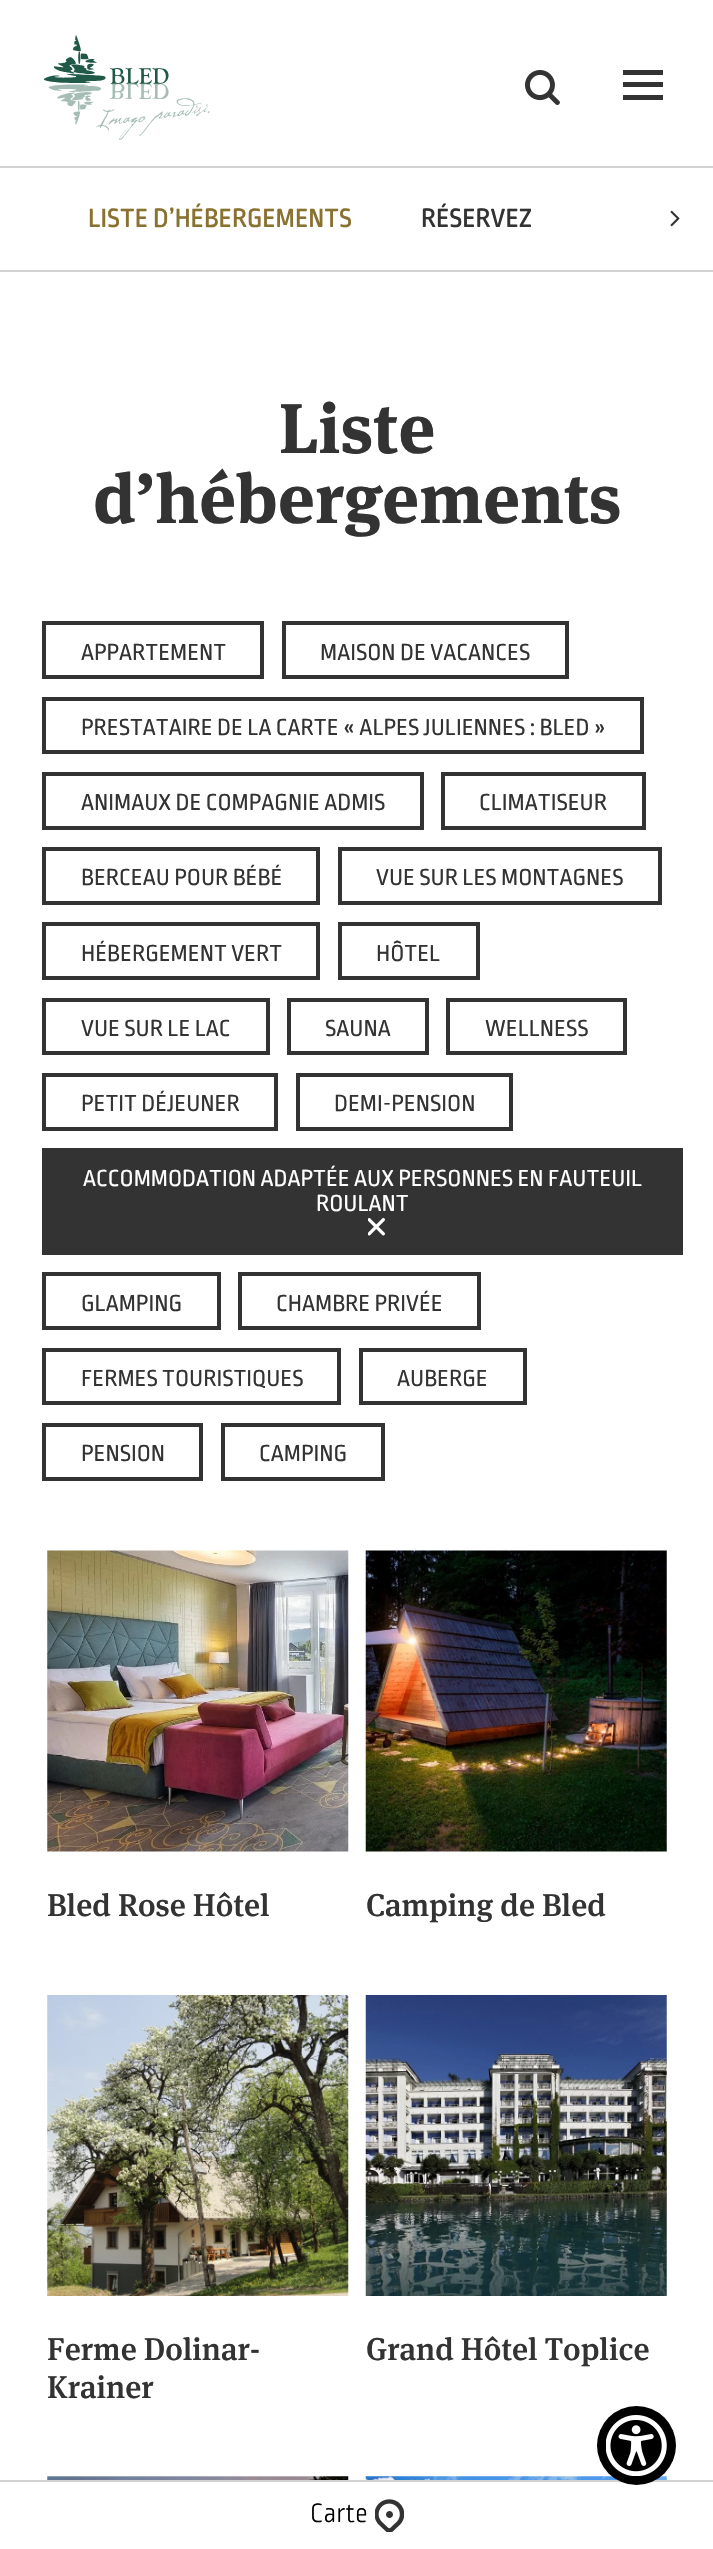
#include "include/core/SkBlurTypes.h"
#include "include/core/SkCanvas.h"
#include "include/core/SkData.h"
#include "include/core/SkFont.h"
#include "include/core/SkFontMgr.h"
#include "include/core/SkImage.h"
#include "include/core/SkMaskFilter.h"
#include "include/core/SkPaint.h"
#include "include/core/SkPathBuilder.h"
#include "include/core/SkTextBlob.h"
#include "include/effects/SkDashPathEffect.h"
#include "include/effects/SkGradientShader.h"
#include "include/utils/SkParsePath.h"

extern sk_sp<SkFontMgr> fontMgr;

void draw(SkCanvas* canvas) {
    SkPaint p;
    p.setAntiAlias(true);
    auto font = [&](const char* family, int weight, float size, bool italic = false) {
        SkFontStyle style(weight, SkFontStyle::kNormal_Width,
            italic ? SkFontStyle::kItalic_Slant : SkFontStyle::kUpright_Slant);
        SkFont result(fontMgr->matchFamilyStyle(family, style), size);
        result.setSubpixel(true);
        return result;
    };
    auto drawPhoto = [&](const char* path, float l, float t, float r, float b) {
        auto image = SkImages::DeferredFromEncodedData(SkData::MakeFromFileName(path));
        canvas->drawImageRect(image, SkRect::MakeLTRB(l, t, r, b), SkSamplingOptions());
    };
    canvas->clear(0xFFFFFFFF);
    drawPhoto("media/1.png", 44, 35, 210, 140);
    drawPhoto("media/2.png", 525, 70, 560, 105);
    {
        const struct { float l, t, r, b; SkColor color; } items[] = {
            {623, 70, 663, 75, 0xFF333333},
            {623, 82, 663, 87, 0xFF333333},
            {623, 95, 663, 100, 0xFF333333},
            {0, 166, 713, 168, 0xFFD2D2D2},
            {0, 270, 713, 272, 0xFFD2D2D2},
        };
        for (auto [l, t, r, b, color] : items) {
            p.setColor(color);
            canvas->drawRect(SkRect::MakeLTRB(l, t, r, b), p);
        }
    }
    auto font1 = font("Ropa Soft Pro", 500, 28);
    p.setColor(0xFF897130);
    canvas->drawString("LISTE D’HÉBERGEMENTS", 88, 227, font1, p);
    p.setColor(0xFF333333);
    canvas->drawString("RÉSERVEZ", 421, 227, font1, p);
    drawPhoto("media/3.png", 670, 210, 680, 227);
    p.setColor(0xFFD2D2D2);
    canvas->drawRect(SkRect::MakeLTRB(0, 2480, 713, 2482), p);
    auto font2 = font("Ropa Soft Pro", 300, 28);
    p.setColor(0xFF000000);
    canvas->drawString("Carte", 310, 2522, font2, p);
    drawPhoto("media/4.png", 375, 2499, 404, 2532);
    auto font3 = font("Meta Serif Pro", 700, 70);
    p.setColor(0xFF333333);
    canvas->drawString("Liste", 279, 453, font3, p);
    canvas->drawString("d’hébergements", 93, 523, font3, p);
    p.setStyle(SkPaint::kStroke_Style);
    p.setStrokeWidth(4);
    canvas->drawRect(SkRect::MakeLTRB(44, 623, 262, 677), p);
    auto font4 = font("Ropa Soft Pro", 400, 24.5f);
    p.setStyle(SkPaint::kFill_Style);
    canvas->drawString("APPARTEMENT", 81, 660, font4, p);
    p.setStyle(SkPaint::kStroke_Style);
    canvas->drawRect(SkRect::MakeLTRB(284, 623, 567, 677), p);
    p.setStyle(SkPaint::kFill_Style);
    canvas->drawString("MAISON DE VACANCES", 320, 660, font4, p);
    p.setStyle(SkPaint::kStroke_Style);
    canvas->drawRect(SkRect::MakeLTRB(44, 699, 642, 752), p);
    p.setStyle(SkPaint::kFill_Style);
    canvas->drawString("PRESTATAIRE DE LA CARTE « ALPES JULIENNES : BLED »", 81, 735, font4, p);
    p.setStyle(SkPaint::kStroke_Style);
    canvas->drawRect(SkRect::MakeLTRB(44, 774, 422, 828), p);
    p.setStyle(SkPaint::kFill_Style);
    canvas->drawString("ANIMAUX DE COMPAGNIE ADMIS", 81, 810, font4, p);
    p.setStyle(SkPaint::kStroke_Style);
    canvas->drawRect(SkRect::MakeLTRB(443, 774, 644, 828), p);
    p.setStyle(SkPaint::kFill_Style);
    canvas->drawString("CLIMATISEUR", 479, 810, font4, p);
    p.setStyle(SkPaint::kStroke_Style);
    canvas->drawRect(SkRect::MakeLTRB(44, 849, 318, 903), p);
    p.setStyle(SkPaint::kFill_Style);
    canvas->drawString("BERCEAU POUR BÉBÉ", 81, 885, font4, p);
    p.setStyle(SkPaint::kStroke_Style);
    canvas->drawRect(SkRect::MakeLTRB(340, 849, 660, 903), p);
    p.setStyle(SkPaint::kFill_Style);
    canvas->drawString("VUE SUR LES MONTAGNES", 376, 885, font4, p);
    p.setStyle(SkPaint::kStroke_Style);
    canvas->drawRect(SkRect::MakeLTRB(44, 924, 318, 978), p);
    p.setStyle(SkPaint::kFill_Style);
    canvas->drawString("HÉBERGEMENT VERT", 81, 961, font4, p);
    p.setStyle(SkPaint::kStroke_Style);
    canvas->drawRect(SkRect::MakeLTRB(340, 924, 478, 978), p);
    p.setStyle(SkPaint::kFill_Style);
    canvas->drawString("HÔTEL", 376, 961, font4, p);
    p.setStyle(SkPaint::kStroke_Style);
    canvas->drawRect(SkRect::MakeLTRB(44, 1000, 268, 1053), p);
    p.setStyle(SkPaint::kFill_Style);
    canvas->drawString("VUE SUR LE LAC", 81, 1036, font4, p);
    p.setStyle(SkPaint::kStroke_Style);
    canvas->drawRect(SkRect::MakeLTRB(289, 1000, 427, 1053), p);
    p.setStyle(SkPaint::kFill_Style);
    canvas->drawString("SAUNA", 325, 1036, font4, p);
    p.setStyle(SkPaint::kStroke_Style);
    canvas->drawRect(SkRect::MakeLTRB(448, 1000, 625, 1053), p);
    p.setStyle(SkPaint::kFill_Style);
    canvas->drawString("WELLNESS", 485, 1036, font4, p);
    p.setStyle(SkPaint::kStroke_Style);
    canvas->drawRect(SkRect::MakeLTRB(44, 1075, 276, 1129), p);
    p.setStyle(SkPaint::kFill_Style);
    canvas->drawString("PETIT DÉJEUNER", 81, 1111, font4, p);
    p.setStyle(SkPaint::kStroke_Style);
    canvas->drawRect(SkRect::MakeLTRB(298, 1075, 511, 1129), p);
    p.setStyle(SkPaint::kFill_Style);
    canvas->drawString("DEMI-PENSION", 334, 1111, font4, p);
    canvas->drawRect(SkRect::MakeLTRB(42, 1148, 683, 1255), p);
    p.setColor(0xFFFFFFFF);
    canvas->drawString("ACCOMMODATION ADAPTÉE AUX PERSONNES EN FAUTEUIL", 83, 1186, font4, p);
    canvas->drawString("ROULANT", 316, 1211, font4, p);
    drawPhoto("media/5.png", 368, 1218, 385, 1236);
    p.setStyle(SkPaint::kStroke_Style);
    p.setColor(0xFF333333);
    canvas->drawRect(SkRect::MakeLTRB(44, 1274, 219, 1328), p);
    p.setStyle(SkPaint::kFill_Style);
    canvas->drawString("GLAMPING", 81, 1311, font4, p);
    p.setStyle(SkPaint::kStroke_Style);
    canvas->drawRect(SkRect::MakeLTRB(240, 1274, 479, 1328), p);
    p.setStyle(SkPaint::kFill_Style);
    canvas->drawString("CHAMBRE PRIVÉE", 276, 1311, font4, p);
    p.setStyle(SkPaint::kStroke_Style);
    canvas->drawRect(SkRect::MakeLTRB(44, 1350, 339, 1403), p);
    p.setStyle(SkPaint::kFill_Style);
    canvas->drawString("FERMES TOURISTIQUES", 81, 1386, font4, p);
    p.setStyle(SkPaint::kStroke_Style);
    canvas->drawRect(SkRect::MakeLTRB(361, 1350, 525, 1403), p);
    p.setStyle(SkPaint::kFill_Style);
    canvas->drawString("AUBERGE", 397, 1386, font4, p);
    p.setStyle(SkPaint::kStroke_Style);
    canvas->drawRect(SkRect::MakeLTRB(44, 1425, 201, 1479), p);
    p.setStyle(SkPaint::kFill_Style);
    canvas->drawString("PENSION", 81, 1461, font4, p);
    p.setStyle(SkPaint::kStroke_Style);
    canvas->drawRect(SkRect::MakeLTRB(223, 1425, 383, 1479), p);
    p.setStyle(SkPaint::kFill_Style);
    canvas->drawString("CAMPING", 259, 1461, font4, p);
    drawPhoto("media/6.png", 47, 1550, 349, 1852);
    auto font5 = font("Meta Serif Pro", 500, 31.5f);
    canvas->drawString("Bled Rose Hôtel", 47, 1916, font5, p);
    drawPhoto("media/7.png", 365, 1550, 667, 1852);
    canvas->drawString("Camping de Bled", 366, 1916, font5, p);
    drawPhoto("media/8.png", 47, 1995, 349, 2296);
    canvas->drawString("Ferme Dolinar-", 47, 2360, font5, p);
    canvas->drawString("Krainer", 47, 2398, font5, p);
    drawPhoto("media/9.png", 365, 1995, 667, 2296);
    canvas->drawString("Grand Hôtel Toplice", 366, 2360, font5, p);
    drawPhoto("media/10.png", 47, 2476, 349, 2480);
    drawPhoto("media/11.png", 365, 2476, 667, 2480);
    p.setColor(0xFF000000);
    canvas->drawCircle(636.5f, 2445.5f, 39.5f, p);
    drawPhoto("media/12.png", 606, 2415, 667, 2476);
}
